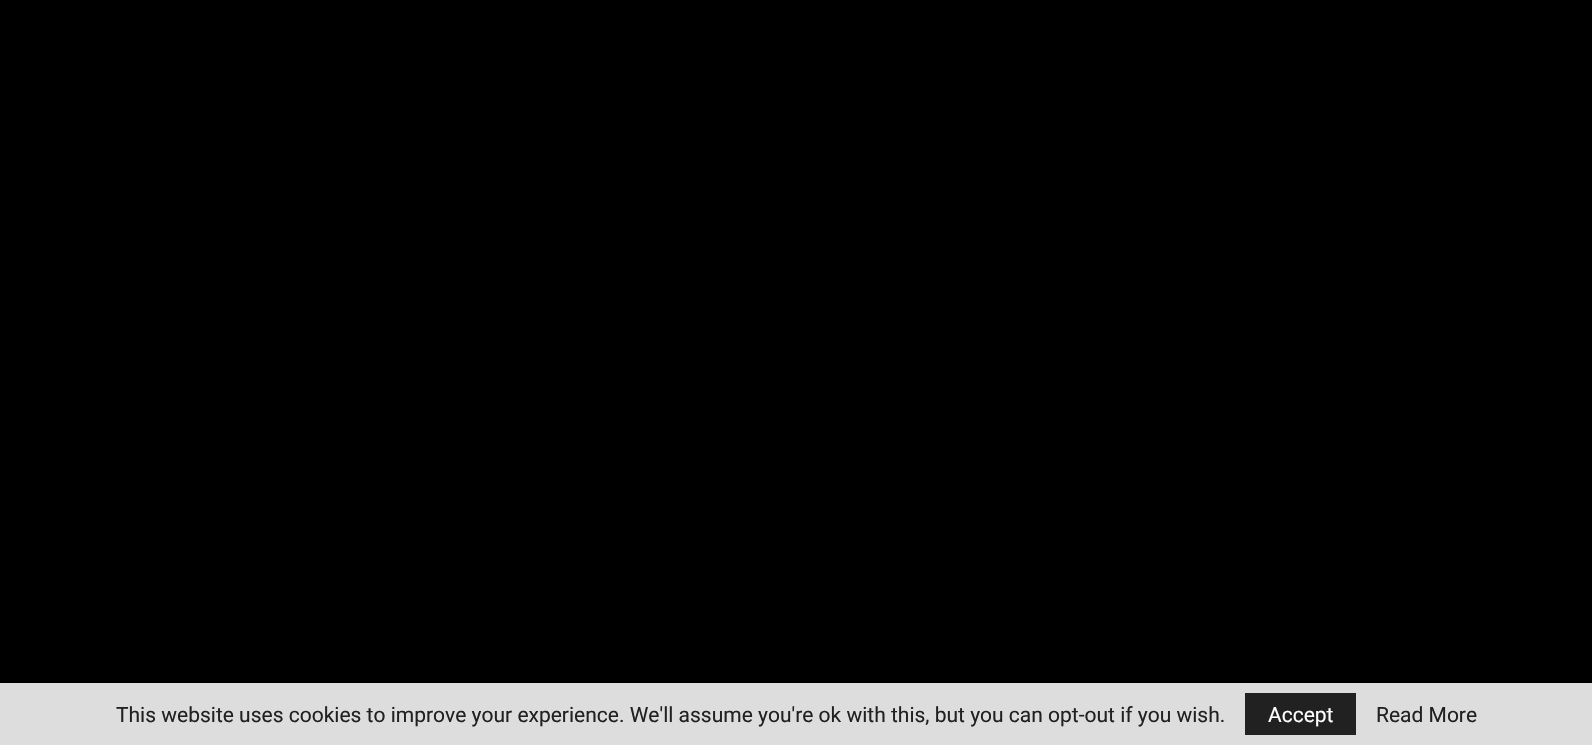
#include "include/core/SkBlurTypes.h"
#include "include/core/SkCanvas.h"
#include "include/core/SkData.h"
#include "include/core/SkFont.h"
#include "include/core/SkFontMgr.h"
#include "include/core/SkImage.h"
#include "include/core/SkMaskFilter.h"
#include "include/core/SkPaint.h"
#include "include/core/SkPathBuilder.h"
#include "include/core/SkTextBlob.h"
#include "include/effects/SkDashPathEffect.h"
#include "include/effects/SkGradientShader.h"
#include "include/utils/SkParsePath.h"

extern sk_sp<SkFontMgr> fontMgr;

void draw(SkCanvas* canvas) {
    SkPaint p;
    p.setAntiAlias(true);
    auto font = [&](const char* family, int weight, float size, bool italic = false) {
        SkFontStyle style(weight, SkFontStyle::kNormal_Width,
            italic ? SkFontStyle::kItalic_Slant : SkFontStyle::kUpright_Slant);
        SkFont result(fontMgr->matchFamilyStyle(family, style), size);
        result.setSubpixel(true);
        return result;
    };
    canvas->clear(0xFF000000);
    p.setColor(0xFFDDDDDD);
    canvas->drawRect(SkRect::MakeLTRB(0, 683, 1592, 745), p);
    auto font1 = font("Roboto", 400, 21);
    p.setColor(0xFF212121);
    canvas->drawString("This website uses cookies to improve your experience. We'll assume you're ok with this, but you can opt-out if you wish.", 116, 722, font1, p);
    canvas->drawRect(SkRect::MakeLTRB(1245, 693, 1356, 735), p);
    p.setColor(0xFFFFFFFF);
    canvas->drawString("Accept", 1268, 722, font1, p);
    p.setColor(0xFF212121);
    canvas->drawString("Read More", 1376, 722, font1, p);
}
